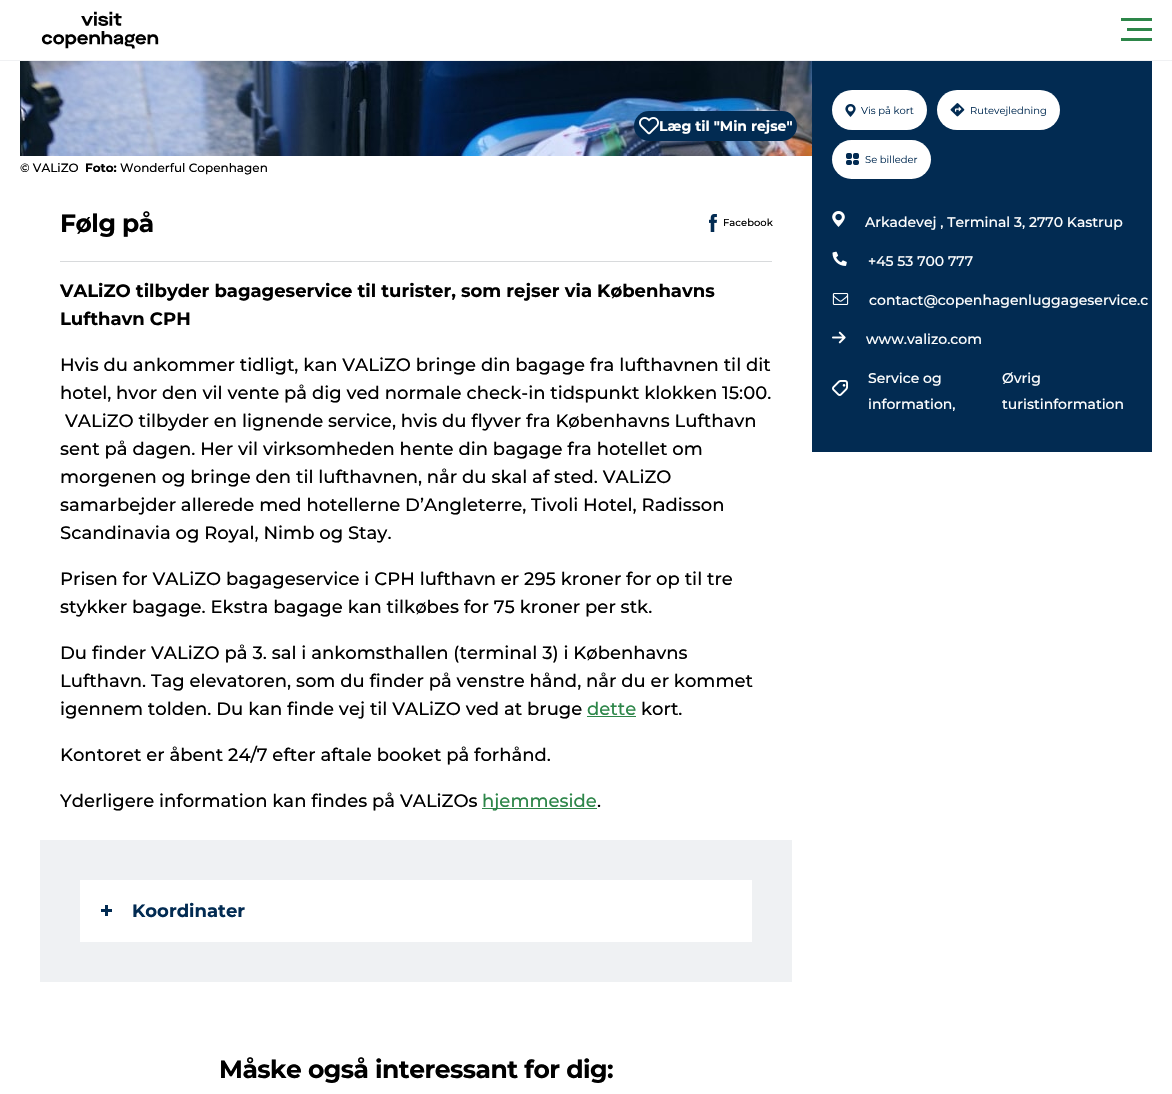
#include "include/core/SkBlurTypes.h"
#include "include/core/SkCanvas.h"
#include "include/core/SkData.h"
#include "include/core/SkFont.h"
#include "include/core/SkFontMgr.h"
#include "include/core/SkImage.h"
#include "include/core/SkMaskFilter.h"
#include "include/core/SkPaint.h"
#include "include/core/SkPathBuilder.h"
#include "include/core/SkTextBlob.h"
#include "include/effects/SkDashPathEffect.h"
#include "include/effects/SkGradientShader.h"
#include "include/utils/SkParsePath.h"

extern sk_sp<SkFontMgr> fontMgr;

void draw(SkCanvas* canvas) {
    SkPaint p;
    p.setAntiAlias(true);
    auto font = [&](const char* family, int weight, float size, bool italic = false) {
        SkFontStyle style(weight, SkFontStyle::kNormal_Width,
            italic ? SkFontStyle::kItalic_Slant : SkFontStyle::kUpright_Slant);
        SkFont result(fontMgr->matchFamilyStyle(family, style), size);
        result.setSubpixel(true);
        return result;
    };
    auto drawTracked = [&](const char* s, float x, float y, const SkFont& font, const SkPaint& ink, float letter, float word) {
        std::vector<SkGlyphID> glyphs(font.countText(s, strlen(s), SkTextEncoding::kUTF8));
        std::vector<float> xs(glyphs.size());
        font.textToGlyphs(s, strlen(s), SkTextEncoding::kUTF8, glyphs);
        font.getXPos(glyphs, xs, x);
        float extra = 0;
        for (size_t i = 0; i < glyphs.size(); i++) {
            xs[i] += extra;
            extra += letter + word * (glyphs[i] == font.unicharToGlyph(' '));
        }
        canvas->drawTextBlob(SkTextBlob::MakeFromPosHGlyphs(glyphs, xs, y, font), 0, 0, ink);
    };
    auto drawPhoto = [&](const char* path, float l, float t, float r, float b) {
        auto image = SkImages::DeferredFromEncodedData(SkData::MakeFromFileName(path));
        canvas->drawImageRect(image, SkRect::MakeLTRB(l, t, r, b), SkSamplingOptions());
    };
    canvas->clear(0xFFFFFFFF);
    p.setColor(0xFFF0F1F3);
    canvas->drawRect(SkRect::MakeLTRB(0, 60, 1172, 61), p);
    drawPhoto("media/1.png", 41, 11, 159, 49);
    {
        const struct { float l, t, r, b; SkColor color; } items[] = {
            {1121, 18, 1152, 21, 0xFF2D8649},
            {1127, 28, 1152, 31, 0xFF2D8649},
            {1121, 38, 1152, 41, 0xFF2D8649},
        };
        for (auto [l, t, r, b, color] : items) {
            p.setColor(color);
            canvas->drawRect(SkRect::MakeLTRB(l, t, r, b), p);
        }
    }
    drawPhoto("media/2.png", 20, 61, 812, 156);
    p.setColor(0xFF022B52);
    canvas->drawRoundRect(SkRect::MakeLTRB(634, 111, 797, 141), 15, 15, p);
    drawPhoto("media/3.png", 639, 117, 659, 135);
    auto font1 = font("Montserrat", 700, 14);
    p.setColor(0xFFFFFFFF);
    canvas->drawString("Læg til \"Min rejse\"", 659, 131, font1, p);
    auto font2 = font("Montserrat", 500, 12);
    p.setColor(0xFF000000);
    canvas->drawString("© VALiZO", 20, 172, font2, p);
    auto font3 = font("Montserrat", 700, 12);
    canvas->drawString("Foto:", 85, 172, font3, p);
    canvas->drawString("Wonderful Copenhagen", 120, 172, font2, p);
    p.setColor(0xFF022B52);
    canvas->drawRect(SkRect::MakeLTRB(812, 61, 1152, 452), p);
    p.setColor(0xFFFFFFFF);
    canvas->drawRoundRect(SkRect::MakeLTRB(832, 90, 927, 130), 20, 20, p);
    drawPhoto("media/4.png", 845, 104, 856, 117);
    auto font4 = font("Montserrat", 400, 10);
    p.setColor(0xFF022B52);
    canvas->drawString("Vis på kort", 861, 114, font4, p);
    p.setColor(0xFFFFFFFF);
    canvas->drawRoundRect(SkRect::MakeLTRB(937, 90, 1060, 130), 20, 20, p);
    drawPhoto("media/5.png", 950, 103, 965, 117);
    p.setColor(0xFF022B52);
    canvas->drawString("Rutevejledning", 970, 114, font4, p);
    p.setColor(0xFFFFFFFF);
    canvas->drawRoundRect(SkRect::MakeLTRB(832, 140, 931, 179), 19.5f, 19.5f, p);
    drawPhoto("media/6.png", 846, 153, 859, 165);
    p.setColor(0xFF022B52);
    canvas->drawString("Se billeder", 865, 163, font4, p);
    drawPhoto("media/7.png", 832, 211, 845, 227);
    auto font5 = font("Montserrat", 500, 14);
    p.setColor(0xFFFFFFFF);
    canvas->drawString("Arkadevej , Terminal 3, 2770 Kastrup", 865, 227, font5, p);
    drawPhoto("media/8.png", 832, 251, 847, 266);
    canvas->drawString("+45 53 700 777", 868, 266, font5, p);
    drawPhoto("media/9.png", 832, 293, 849, 305);
    canvas->drawString("contact@copenhagenluggageservice.c", 869, 305, font5, p);
    drawPhoto("media/10.png", 832, 331, 846, 344);
    canvas->drawString("www.valizo.com", 866, 344, font5, p);
    drawPhoto("media/11.png", 832, 380, 848, 396);
    {
        const struct { const char* s; float x, y; } items[] = {
            {"Service og", 868, 383},
            {"information,", 868, 409},
            {"Øvrig", 1002, 383},
            {"turistinformation", 1002, 409},
        };
        for (auto [s, x, y] : items) {
            canvas->drawString(s, x, y, font5, p);
        }
    }
    p.setColor(0xFFD8DADC);
    canvas->drawRect(SkRect::MakeLTRB(60, 261, 772, 262), p);
    auto font6 = font("Montserrat", 700, 25);
    p.setColor(0xFF000000);
    drawTracked("Følg på", 60, 232, font6, p, -0.5f, 0);
    drawPhoto("media/12.png", 709, 214, 717, 232);
    auto font7 = font("Montserrat", 500, 10);
    canvas->drawString("Facebook", 723, 226, font7, p);
    auto font8 = font("Montserrat", 700, 18);
    canvas->drawString("VALiZO tilbyder bagageservice til turister, som rejser via Københavns", 60, 297, font8, p);
    canvas->drawString("Lufthavn CPH", 60, 325, font8, p);
    auto font9 = font("Montserrat", 500, 18);
    {
        const struct { const char* s; float x, y; } items[] = {
            {"Hvis du ankommer tidligt, kan VALiZO bringe din bagage fra lufthavnen til dit", 60, 371},
            {"hotel, hvor den vil vente på dig ved normale check-in tidspunkt klokken 15:00.", 60, 399},
            {"VALiZO tilbyder en lignende service, hvis du flyver fra Københavns Lufthavn", 65, 427},
            {"sent på dagen. Her vil virksomheden hente din bagage fra hotellet om", 60, 455},
            {"morgenen og bringe den til lufthavnen, når du skal af sted. VALiZO", 60, 483},
            {"samarbejder allerede med hotellerne D’Angleterre, Tivoli Hotel, Radisson", 60, 511},
            {"Scandinavia og Royal, Nimb og Stay.", 60, 539},
            {"Prisen for VALiZO bagageservice i CPH lufthavn er 295 kroner for op til tre", 60, 585},
            {"stykker bagage. Ekstra bagage kan tilkøbes for 75 kroner per stk.", 60, 613},
            {"Du finder VALiZO på 3. sal i ankomsthallen (terminal 3) i Københavns", 60, 659},
            {"Lufthavn. Tag elevatoren, som du finder på venstre hånd, når du er kommet", 60, 687},
            {"igennem tolden. Du kan finde vej til VALiZO ved at bruge", 60, 715},
        };
        for (auto [s, x, y] : items) {
            canvas->drawString(s, x, y, font9, p);
        }
    }
    p.setColor(0xFF2D8649);
    canvas->drawString("dette", 587, 715, font9, p);
    canvas->drawRect(SkRect::MakeLTRB(587, 716, 636, 717), p);
    p.setColor(0xFF000000);
    {
        const struct { const char* s; float x, y; } items[] = {
            {"kort.", 641, 715},
            {"Kontoret er åbent 24/7 efter aftale booket på forhånd.", 60, 761},
            {"Yderligere information kan findes på VALiZOs", 60, 807},
        };
        for (auto [s, x, y] : items) {
            canvas->drawString(s, x, y, font9, p);
        }
    }
    p.setColor(0xFF2D8649);
    canvas->drawRect(SkRect::MakeLTRB(482, 808, 597, 809), p);
    canvas->drawString("hjemmeside", 482, 807, font9, p);
    p.setColor(0xFF000000);
    canvas->drawString(".", 597, 807, font9, p);
    {
        const struct { float l, t, r, b; SkColor color; } items[] = {
            {40, 840, 792, 982, 0xFFEFF1F3},
            {80, 880, 752, 942, 0xFFFFFFFF},
            {101, 909, 112, 912, 0xFF022B52},
            {105, 905, 108, 916, 0xFF022B52},
        };
        for (auto [l, t, r, b, color] : items) {
            p.setColor(color);
            canvas->drawRect(SkRect::MakeLTRB(l, t, r, b), p);
        }
    }
    canvas->drawString("Koordinater", 132, 917, font8, p);
    p.setColor(0xFF000000);
    drawTracked("Måske også interessant for dig:", 219, 1078, font6, p, -0.5f, 0);
}
